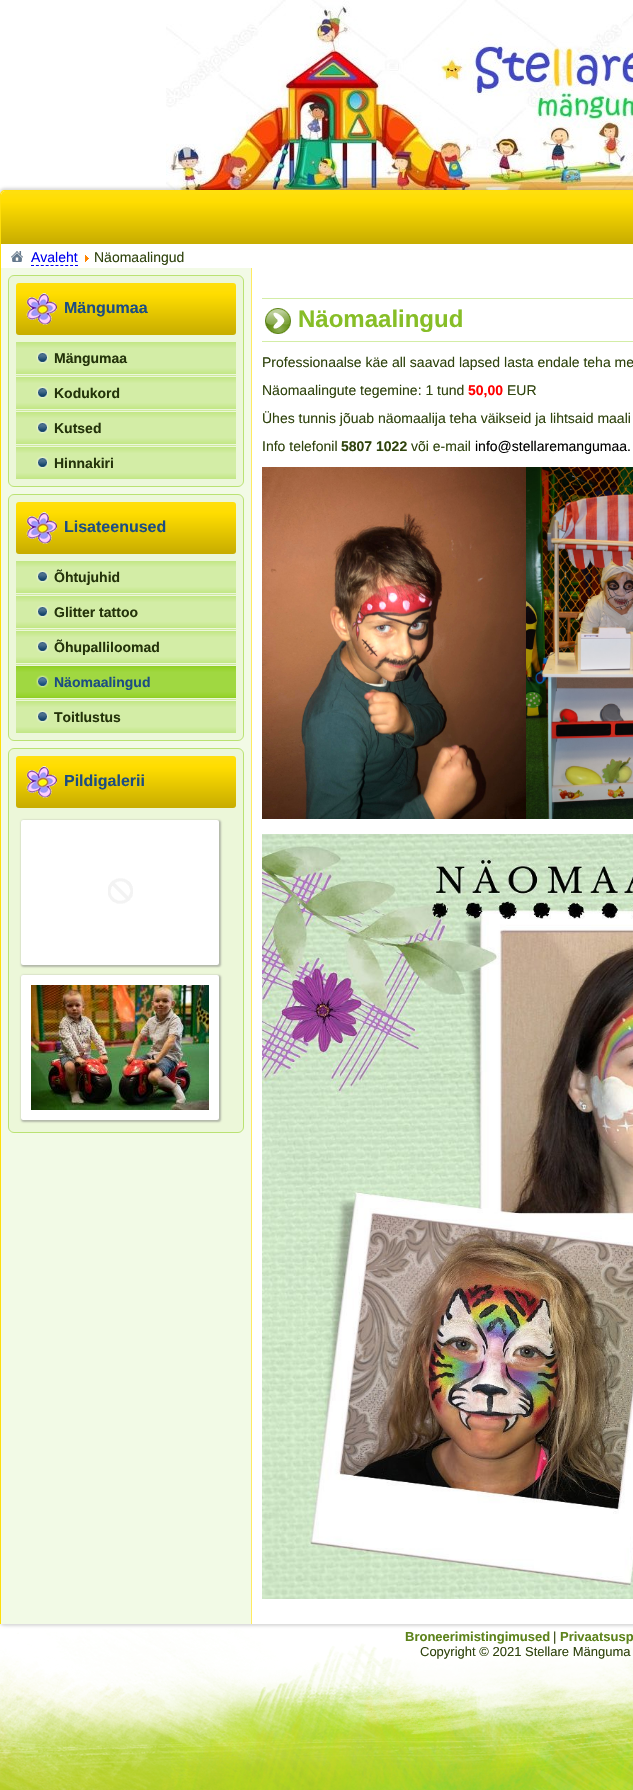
#include "include/core/SkBlurTypes.h"
#include "include/core/SkCanvas.h"
#include "include/core/SkData.h"
#include "include/core/SkFont.h"
#include "include/core/SkFontMgr.h"
#include "include/core/SkImage.h"
#include "include/core/SkMaskFilter.h"
#include "include/core/SkPaint.h"
#include "include/core/SkPathBuilder.h"
#include "include/core/SkTextBlob.h"
#include "include/effects/SkDashPathEffect.h"
#include "include/effects/SkGradientShader.h"
#include "include/utils/SkParsePath.h"

extern sk_sp<SkFontMgr> fontMgr;

void draw(SkCanvas* canvas) {
    SkPaint p;
    p.setAntiAlias(true);
    auto font = [&](const char* family, int weight, float size, bool italic = false) {
        SkFontStyle style(weight, SkFontStyle::kNormal_Width,
            italic ? SkFontStyle::kItalic_Slant : SkFontStyle::kUpright_Slant);
        SkFont result(fontMgr->matchFamilyStyle(family, style), size);
        result.setSubpixel(true);
        return result;
    };
    auto drawPhoto = [&](const char* path, float l, float t, float r, float b) {
        auto image = SkImages::DeferredFromEncodedData(SkData::MakeFromFileName(path));
        canvas->drawImageRect(image, SkRect::MakeLTRB(l, t, r, b), SkSamplingOptions());
    };
    canvas->clear(0xFFFFFFFF);
    drawPhoto("media/1.png", 0, 1629, 633, 1790);
    drawPhoto("media/2.png", 166, 0, 633, 190);
    p.setColor(0x26000000);
    p.setMaskFilter(SkMaskFilter::MakeBlur(kNormal_SkBlurStyle, 1.5f));
    canvas->drawRoundRect(SkRect::MakeLTRB(-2, 188, 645, 1626), 7, 7, p);
    p.setMaskFilter(nullptr);
    p.setColor(0xFFFFFFFF);
    canvas->drawPath(SkPathBuilder().moveTo(5, 190).lineTo(633, 190).cubicTo(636, 190, 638, 192, 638, 195).lineTo(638, 1624).lineTo(0, 1624).lineTo(0, 195).cubicTo(0, 192, 2, 190, 5, 190).close().detach(), p);
    p.setColor(0xFFFFDE0A);
    canvas->drawPath(SkPathBuilder(SkPathFillType::kEvenOdd).moveTo(5, 190).lineTo(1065, 190).cubicTo(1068, 190, 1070, 192, 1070, 195).lineTo(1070, 1624).lineTo(0, 1624).lineTo(0, 195).cubicTo(0, 192, 2, 190, 5, 190).close().moveTo(5, 191).lineTo(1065, 191).cubicTo(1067, 191, 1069, 193, 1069, 195).lineTo(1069, 1624).lineTo(1, 1624).lineTo(1, 195).cubicTo(1, 193, 3, 191, 5, 191).close().detach(), p);
    {
        const SkColor colors[] = {0xFFFFDF0F, 0xFFFFDD00, 0xFFC7AC00};
        const float stops[] = {0, 0.21f, 1};
        const SkPoint ends[] = {{535, 191}, {535, 244}};
        p.setShader(SkGradientShader::MakeLinear(ends, colors, stops, 3, SkTileMode::kClamp));
        p.setAlpha(255);
    }
    canvas->drawPath(SkPathBuilder().moveTo(5, 191).lineTo(633, 191).cubicTo(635, 191, 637, 193, 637, 195).lineTo(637, 244).lineTo(1, 244).lineTo(1, 195).cubicTo(1, 193, 3, 191, 5, 191).close().detach(), p);
    drawPhoto("media/3.png", 11, 251, 23, 262);
    auto font1 = font("Liberation Sans", 400, 14);
    p.setShader(nullptr);
    p.setColor(0xFF0000EE);
    canvas->drawString("Avaleht", 31, 262, font1, p);
    p.setStyle(SkPaint::kStroke_Style);
    p.setStrokeWidth(1);
    p.setPathEffect(SkDashPathEffect::Make({{3, 1.89f}}, 0));
    canvas->drawPath(SkPathBuilder().moveTo(31, 265.5f).lineTo(78, 265.5f).detach(), p);
    p.setPathEffect(nullptr);
    drawPhoto("media/4.png", 85, 255, 89, 262);
    p.setStyle(SkPaint::kFill_Style);
    p.setColor(0xFF30440E);
    canvas->drawString("Näomaalingud", 94, 262, font1, p);
    p.setColor(0xFFF2FAE6);
    canvas->drawRect(SkRect::MakeLTRB(1, 268, 251, 1624), p);
    p.setColor(0xFFFFEA61);
    canvas->drawRect(SkRect::MakeLTRB(251, 268, 252, 1624), p);
    p.setColor(0xFFECF7D9);
    canvas->drawRoundRect(SkRect::MakeLTRB(8.5f, 275.5f, 243.5f, 486.5f), 5.5f, 5.5f, p);
    p.setStyle(SkPaint::kStroke_Style);
    p.setColor(0xFFBAE273);
    canvas->drawRoundRect(SkRect::MakeLTRB(8.5f, 275.5f, 243.5f, 486.5f), 5.5f, 5.5f, p);
    p.setStyle(SkPaint::kFill_Style);
    {
        const SkColor colors[] = {0xFFFFDF0F, 0xFFFFDD00, 0xFFC7AC00};
        const float stops[] = {0, 0.21f, 1};
        const SkPoint ends[] = {{126, 283}, {126, 335}};
        p.setShader(SkGradientShader::MakeLinear(ends, colors, stops, 3, SkTileMode::kClamp));
        p.setAlpha(255);
    }
    canvas->drawRoundRect(SkRect::MakeLTRB(16, 283, 236, 335), 3, 3, p);
    drawPhoto("media/5.png", 26, 293, 57, 325);
    auto font2 = font("Liberation Sans", 700, 16);
    p.setShader(nullptr);
    p.setColor(0xFF1C4D82);
    canvas->drawString("Mängumaa", 64, 313, font2, p);
    {
        const SkColor colors[] = {0xFFC2E684, 0xFFD3EDA6, 0xFFD3EDA6, 0xFFC2E684};
        const float stops[] = {0, 0.2f, 0.8f, 1};
        const SkPoint ends[] = {{126, 342}, {126, 374}};
        p.setShader(SkGradientShader::MakeLinear(ends, colors, stops, 4, SkTileMode::kClamp));
        p.setAlpha(255);
    }
    canvas->drawRect(SkRect::MakeLTRB(16, 342, 236, 374), p);
    drawPhoto("media/6.png", 36, 351, 49, 364);
    auto font3 = font("Liberation Sans", 700, 14);
    p.setShader(nullptr);
    p.setColor(0xFF24330A);
    canvas->drawString("Mängumaa", 54, 363, font3, p);
    p.setColor(0xFFCFEB9E);
    canvas->drawRect(SkRect::MakeLTRB(16, 375, 236, 376), p);
    {
        const SkColor colors[] = {0xFFC2E684, 0xFFD3EDA6, 0xFFD3EDA6, 0xFFC2E684};
        const float stops[] = {0, 0.2f, 0.8f, 1};
        const SkPoint ends[] = {{126, 377}, {126, 409}};
        p.setShader(SkGradientShader::MakeLinear(ends, colors, stops, 4, SkTileMode::kClamp));
        p.setAlpha(255);
    }
    canvas->drawRect(SkRect::MakeLTRB(16, 377, 236, 409), p);
    drawPhoto("media/6.png", 36, 386, 49, 399);
    p.setShader(nullptr);
    p.setColor(0xFF24330A);
    canvas->drawString("Kodukord", 54, 398, font3, p);
    p.setColor(0xFFCFEB9E);
    canvas->drawRect(SkRect::MakeLTRB(16, 410, 236, 411), p);
    {
        const SkColor colors[] = {0xFFC2E684, 0xFFD3EDA6, 0xFFD3EDA6, 0xFFC2E684};
        const float stops[] = {0, 0.2f, 0.8f, 1};
        const SkPoint ends[] = {{126, 412}, {126, 444}};
        p.setShader(SkGradientShader::MakeLinear(ends, colors, stops, 4, SkTileMode::kClamp));
        p.setAlpha(255);
    }
    canvas->drawRect(SkRect::MakeLTRB(16, 412, 236, 444), p);
    drawPhoto("media/6.png", 36, 421, 49, 434);
    p.setShader(nullptr);
    p.setColor(0xFF24330A);
    canvas->drawString("Kutsed", 54, 433, font3, p);
    p.setColor(0xFFCFEB9E);
    canvas->drawRect(SkRect::MakeLTRB(16, 445, 236, 446), p);
    {
        const SkColor colors[] = {0xFFC2E684, 0xFFD3EDA6, 0xFFD3EDA6, 0xFFC2E684};
        const float stops[] = {0, 0.2f, 0.8f, 1};
        const SkPoint ends[] = {{126, 447}, {126, 479}};
        p.setShader(SkGradientShader::MakeLinear(ends, colors, stops, 4, SkTileMode::kClamp));
        p.setAlpha(255);
    }
    canvas->drawRect(SkRect::MakeLTRB(16, 447, 236, 479), p);
    drawPhoto("media/6.png", 36, 456, 49, 469);
    p.setShader(nullptr);
    p.setColor(0xFF24330A);
    canvas->drawString("Hinnakiri", 54, 468, font3, p);
    p.setColor(0xFFECF7D9);
    canvas->drawRoundRect(SkRect::MakeLTRB(8.5f, 494.5f, 243.5f, 740.5f), 5.5f, 5.5f, p);
    p.setStyle(SkPaint::kStroke_Style);
    p.setColor(0xFFBAE273);
    canvas->drawRoundRect(SkRect::MakeLTRB(8.5f, 494.5f, 243.5f, 740.5f), 5.5f, 5.5f, p);
    p.setStyle(SkPaint::kFill_Style);
    {
        const SkColor colors[] = {0xFFFFDF0F, 0xFFFFDD00, 0xFFC7AC00};
        const float stops[] = {0, 0.21f, 1};
        const SkPoint ends[] = {{126, 502}, {126, 554}};
        p.setShader(SkGradientShader::MakeLinear(ends, colors, stops, 3, SkTileMode::kClamp));
        p.setAlpha(255);
    }
    canvas->drawRoundRect(SkRect::MakeLTRB(16, 502, 236, 554), 3, 3, p);
    drawPhoto("media/5.png", 26, 512, 57, 544);
    p.setShader(nullptr);
    p.setColor(0xFF1C4D82);
    canvas->drawString("Lisateenused", 64, 532, font2, p);
    {
        const SkColor colors[] = {0xFFC2E684, 0xFFD3EDA6, 0xFFD3EDA6, 0xFFC2E684};
        const float stops[] = {0, 0.2f, 0.8f, 1};
        const SkPoint ends[] = {{126, 561}, {126, 593}};
        p.setShader(SkGradientShader::MakeLinear(ends, colors, stops, 4, SkTileMode::kClamp));
        p.setAlpha(255);
    }
    canvas->drawRect(SkRect::MakeLTRB(16, 561, 236, 593), p);
    drawPhoto("media/6.png", 36, 570, 49, 583);
    p.setShader(nullptr);
    p.setColor(0xFF24330A);
    canvas->drawString("Õhtujuhid", 54, 582, font3, p);
    p.setColor(0xFFCFEB9E);
    canvas->drawRect(SkRect::MakeLTRB(16, 594, 236, 595), p);
    {
        const SkColor colors[] = {0xFFC2E684, 0xFFD3EDA6, 0xFFD3EDA6, 0xFFC2E684};
        const float stops[] = {0, 0.2f, 0.8f, 1};
        const SkPoint ends[] = {{126, 596}, {126, 628}};
        p.setShader(SkGradientShader::MakeLinear(ends, colors, stops, 4, SkTileMode::kClamp));
        p.setAlpha(255);
    }
    canvas->drawRect(SkRect::MakeLTRB(16, 596, 236, 628), p);
    drawPhoto("media/6.png", 36, 605, 49, 618);
    p.setShader(nullptr);
    p.setColor(0xFF24330A);
    canvas->drawString("Glitter tattoo", 54, 617, font3, p);
    p.setColor(0xFFCFEB9E);
    canvas->drawRect(SkRect::MakeLTRB(16, 629, 236, 630), p);
    {
        const SkColor colors[] = {0xFFC2E684, 0xFFD3EDA6, 0xFFD3EDA6, 0xFFC2E684};
        const float stops[] = {0, 0.2f, 0.8f, 1};
        const SkPoint ends[] = {{126, 631}, {126, 663}};
        p.setShader(SkGradientShader::MakeLinear(ends, colors, stops, 4, SkTileMode::kClamp));
        p.setAlpha(255);
    }
    canvas->drawRect(SkRect::MakeLTRB(16, 631, 236, 663), p);
    drawPhoto("media/6.png", 36, 640, 49, 653);
    p.setShader(nullptr);
    p.setColor(0xFF24330A);
    canvas->drawString("Õhupalliloomad", 54, 652, font3, p);
    p.setColor(0xFFCFEB9E);
    canvas->drawRect(SkRect::MakeLTRB(16, 664, 236, 665), p);
    {
        const SkColor colors[] = {0xFF90CB2A, 0xFF96D42B, 0xFFA0D841, 0xFFA0D841, 0xFF96D42B, 0xFF90CB2A};
        const float stops[] = {0, 0.06f, 0.2f, 0.8f, 0.94f, 1};
        const SkPoint ends[] = {{126, 666}, {126, 698}};
        p.setShader(SkGradientShader::MakeLinear(ends, colors, stops, 6, SkTileMode::kClamp));
        p.setAlpha(255);
    }
    canvas->drawRect(SkRect::MakeLTRB(16, 666, 236, 698), p);
    drawPhoto("media/7.png", 36, 675, 49, 688);
    p.setShader(nullptr);
    p.setColor(0xFF1C4D82);
    canvas->drawString("Näomaalingud", 54, 687, font3, p);
    p.setColor(0xFFCFEB9E);
    canvas->drawRect(SkRect::MakeLTRB(16, 699, 236, 700), p);
    {
        const SkColor colors[] = {0xFFC2E684, 0xFFD3EDA6, 0xFFD3EDA6, 0xFFC2E684};
        const float stops[] = {0, 0.2f, 0.8f, 1};
        const SkPoint ends[] = {{126, 701}, {126, 733}};
        p.setShader(SkGradientShader::MakeLinear(ends, colors, stops, 4, SkTileMode::kClamp));
        p.setAlpha(255);
    }
    canvas->drawRect(SkRect::MakeLTRB(16, 701, 236, 733), p);
    drawPhoto("media/6.png", 36, 710, 49, 723);
    p.setShader(nullptr);
    p.setColor(0xFF24330A);
    canvas->drawString("Toitlustus", 54, 722, font3, p);
    p.setColor(0xFFECF7D9);
    canvas->drawRoundRect(SkRect::MakeLTRB(8.5f, 748.5f, 243.5f, 1132.5f), 5.5f, 5.5f, p);
    p.setStyle(SkPaint::kStroke_Style);
    p.setColor(0xFFBAE273);
    canvas->drawRoundRect(SkRect::MakeLTRB(8.5f, 748.5f, 243.5f, 1132.5f), 5.5f, 5.5f, p);
    p.setStyle(SkPaint::kFill_Style);
    {
        const SkColor colors[] = {0xFFFFDF0F, 0xFFFFDD00, 0xFFC7AC00};
        const float stops[] = {0, 0.21f, 1};
        const SkPoint ends[] = {{126, 756}, {126, 808}};
        p.setShader(SkGradientShader::MakeLinear(ends, colors, stops, 3, SkTileMode::kClamp));
        p.setAlpha(255);
    }
    canvas->drawRoundRect(SkRect::MakeLTRB(16, 756, 236, 808), 3, 3, p);
    drawPhoto("media/5.png", 26, 766, 57, 798);
    p.setShader(nullptr);
    p.setColor(0xFF1C4D82);
    canvas->drawString("Pildigalerii", 64, 786, font2, p);
    p.setColor(0x80787878);
    p.setMaskFilter(SkMaskFilter::MakeBlur(kNormal_SkBlurStyle, 1));
    canvas->drawRoundRect(SkRect::MakeLTRB(21, 820, 221, 967), 3, 3, p);
    p.setMaskFilter(nullptr);
    p.setColor(0xFFFFFFFF);
    canvas->drawRoundRect(SkRect::MakeLTRB(21, 820, 219, 965), 2, 2, p);
    drawPhoto("media/8.png", 108, 878, 133, 904);
    p.setColor(0x80787878);
    p.setMaskFilter(SkMaskFilter::MakeBlur(kNormal_SkBlurStyle, 1));
    canvas->drawRoundRect(SkRect::MakeLTRB(21, 975, 221, 1122), 3, 3, p);
    p.setMaskFilter(nullptr);
    p.setColor(0xFFFFFFFF);
    canvas->drawRoundRect(SkRect::MakeLTRB(21, 975, 219, 1120), 2, 2, p);
    drawPhoto("media/9.png", 31, 985, 209, 1110);
    p.setColor(0xFFD3EDA6);
    canvas->drawRect(SkRect::MakeLTRB(262, 298, 633, 299), p);
    canvas->drawRect(SkRect::MakeLTRB(262, 341, 633, 342), p);
    drawPhoto("media/10.png", 265, 308, 291, 334);
    auto font4 = font("Liberation Sans", 700, 24);
    p.setColor(0xFF87BE27);
    canvas->drawString("Näomaalingud", 298, 327, font4, p);
    p.setColor(0xFF30440E);
    canvas->drawString("Professionaalse käe all saavad lapsed lasta endale teha me", 262, 367, font1, p);
    canvas->drawString("Näomaalingute tegemine: 1 tund", 262, 395, font1, p);
    p.setColor(0xFFFF0000);
    canvas->drawString("50,00", 468, 395, font3, p);
    p.setColor(0xFF30440E);
    {
        const struct { const char* s; float x, y; } items[] = {
            {"EUR", 507, 395},
            {"Ühes tunnis jõuab näomaalija teha väikseid ja lihtsaid maali", 262, 423},
            {"Info telefonil", 262, 451},
        };
        for (auto [s, x, y] : items) {
            canvas->drawString(s, x, y, font1, p);
        }
    }
    canvas->drawString("5807 1022", 341, 451, font3, p);
    canvas->drawString("või e-mail", 411, 451, font1, p);
    p.setColor(0xFF000000);
    canvas->drawString("info@stellaremangumaa.", 475, 451, font1, p);
    drawPhoto("media/11.png", 262, 467, 526, 819);
    drawPhoto("media/12.png", 526, 467, 633, 819);
    drawPhoto("media/13.png", 262, 834, 633, 1599);
    auto font5 = font("Liberation Sans", 700, 13);
    p.setColor(0xFF5D831B);
    canvas->drawString("Broneerimistingimused", 405, 1641, font5, p);
    auto font6 = font("Liberation Sans", 400, 13);
    p.setColor(0xFF30440E);
    canvas->drawString("|", 553, 1641, font6, p);
    p.setColor(0xFF5D831B);
    canvas->drawString("Privaatsusp", 560, 1641, font5, p);
    p.setColor(0xFF30440E);
    canvas->drawString("Copyright © 2021 Stellare Mänguma", 420, 1656, font6, p);
}
